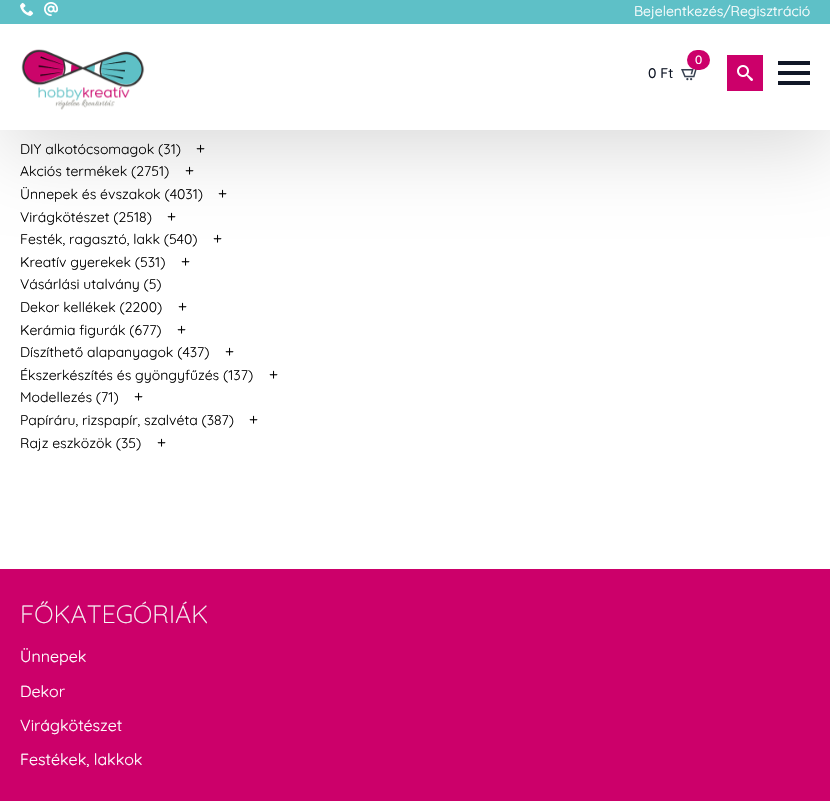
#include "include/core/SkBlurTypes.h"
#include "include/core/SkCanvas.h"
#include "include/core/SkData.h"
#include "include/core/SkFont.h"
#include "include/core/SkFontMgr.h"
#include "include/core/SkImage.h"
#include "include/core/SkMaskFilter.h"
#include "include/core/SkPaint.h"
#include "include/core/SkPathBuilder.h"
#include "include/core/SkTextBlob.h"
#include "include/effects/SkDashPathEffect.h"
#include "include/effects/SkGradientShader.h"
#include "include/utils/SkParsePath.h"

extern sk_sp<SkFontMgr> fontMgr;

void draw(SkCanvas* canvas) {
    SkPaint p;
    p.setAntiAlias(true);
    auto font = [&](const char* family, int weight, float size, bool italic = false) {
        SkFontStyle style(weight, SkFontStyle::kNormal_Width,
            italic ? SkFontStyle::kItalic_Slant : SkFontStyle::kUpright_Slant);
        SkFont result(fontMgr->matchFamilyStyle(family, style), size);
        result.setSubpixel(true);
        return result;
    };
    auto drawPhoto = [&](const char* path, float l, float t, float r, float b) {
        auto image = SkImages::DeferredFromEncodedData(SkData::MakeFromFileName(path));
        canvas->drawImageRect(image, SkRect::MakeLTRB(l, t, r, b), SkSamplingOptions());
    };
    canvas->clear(0xFFFFFFFF);
    p.setColor(0x24000000);
    p.setMaskFilter(SkMaskFilter::MakeBlur(kNormal_SkBlurStyle, 37.5f));
    canvas->drawRect(SkRect::MakeLTRB(5, 20, 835, 150), p);
    p.setMaskFilter(nullptr);
    p.setColor(0xFFFFFFFF);
    canvas->drawRect(SkRect::MakeLTRB(0, 24, 830, 130), p);
    p.setColor(0xFF5EC0C7);
    canvas->drawRect(SkRect::MakeLTRB(0, 0, 830, 24), p);
    drawPhoto("media/1.png", 20, 2, 34, 16);
    drawPhoto("media/2.png", 44, 2, 58, 16);
    auto font1 = font("Quicksand", 400, 14);
    p.setColor(0xFFFFFFFF);
    canvas->drawString("Bejelentkezés/Regisztráció", 634, 16, font1, p);
    drawPhoto("media/3.png", 21, 49, 145, 110);
    drawPhoto("media/4.png", 681, 69, 697, 81);
    p.setColor(0xFFCC006A);
    canvas->drawRoundRect(SkRect::MakeLTRB(687, 50, 710, 70), 10, 10, p);
    auto font2 = font("Quicksand", 500, 12);
    p.setColor(0xFFFFFFFF);
    canvas->drawString("0", 695, 64, font2, p);
    auto font3 = font("Quicksand", 500, 14);
    p.setColor(0xFF111827);
    canvas->drawString("0 Ft", 648, 78, font3, p);
    p.setColor(0xFFCC006A);
    canvas->drawRect(SkRect::MakeLTRB(727, 55, 763, 91), p);
    drawPhoto("media/5.png", 737, 65, 753, 81);
    {
        const struct { float l, t, r, b; SkColor color; } items[] = {
            {778, 71, 810, 75, 0xFF111827},
            {778, 61, 810, 65, 0xFF111827},
            {778, 81, 810, 85, 0xFF111827},
        };
        for (auto [l, t, r, b, color] : items) {
            p.setColor(color);
            canvas->drawRect(SkRect::MakeLTRB(l, t, r, b), p);
        }
    }
    p.setColor(0xFF000000);
    canvas->drawString("DIY alkotócsomagok (31)", 20, 154, font1, p);
    auto font4 = font("Quicksand", 400, 16);
    canvas->drawString("+", 196, 154, font4, p);
    canvas->drawString("Akciós termékek (2751)", 20, 176, font1, p);
    canvas->drawString("+", 185, 176, font4, p);
    canvas->drawString("Ünnepek és évszakok (4031)", 20, 199, font1, p);
    canvas->drawString("+", 218, 199, font4, p);
    canvas->drawString("Virágkötészet (2518)", 20, 222, font1, p);
    canvas->drawString("+", 167, 222, font4, p);
    canvas->drawString("Festék, ragasztó, lakk (540)", 20, 244, font1, p);
    canvas->drawString("+", 213, 244, font4, p);
    canvas->drawString("Kreatív gyerekek (531)", 20, 267, font1, p);
    canvas->drawString("+", 181, 267, font4, p);
    canvas->drawString("Vásárlási utalvány (5)", 20, 289, font1, p);
    canvas->drawString("Dekor kellékek (2200)", 20, 312, font1, p);
    canvas->drawString("+", 178, 312, font4, p);
    canvas->drawString("Kerámia figurák (677)", 20, 335, font1, p);
    canvas->drawString("+", 177, 335, font4, p);
    canvas->drawString("Díszíthető alapanyagok (437)", 20, 357, font1, p);
    canvas->drawString("+", 225, 357, font4, p);
    canvas->drawString("Ékszerkészítés és gyöngyfűzés (137)", 20, 380, font1, p);
    canvas->drawString("+", 269, 380, font4, p);
    canvas->drawString("Modellezés (71)", 20, 402, font1, p);
    canvas->drawString("+", 134, 402, font4, p);
    canvas->drawString("Papíráru, rizspapír, szalvéta (387)", 20, 425, font1, p);
    canvas->drawString("+", 249, 425, font4, p);
    canvas->drawString("Rajz eszközök (35)", 20, 448, font1, p);
    canvas->drawString("+", 157, 448, font4, p);
    p.setColor(0xFFCC006A);
    canvas->drawRect(SkRect::MakeLTRB(0, 569, 830, 801), p);
    auto font5 = font("Quicksand", 300, 25);
    p.setColor(0xFFF6F6F6);
    canvas->drawString("FŐKATEGÓRIÁK", 20, 623, font5, p);
    p.setColor(0xFFFFFFFF);
    {
        const struct { const char* s; float x, y; } items[] = {
            {"Ünnepek", 20, 662},
            {"Dekor", 20, 697},
            {"Virágkötészet", 20, 731},
            {"Festékek, lakkok", 20, 765},
        };
        for (auto [s, x, y] : items) {
            canvas->drawString(s, x, y, font4, p);
        }
    }
}
